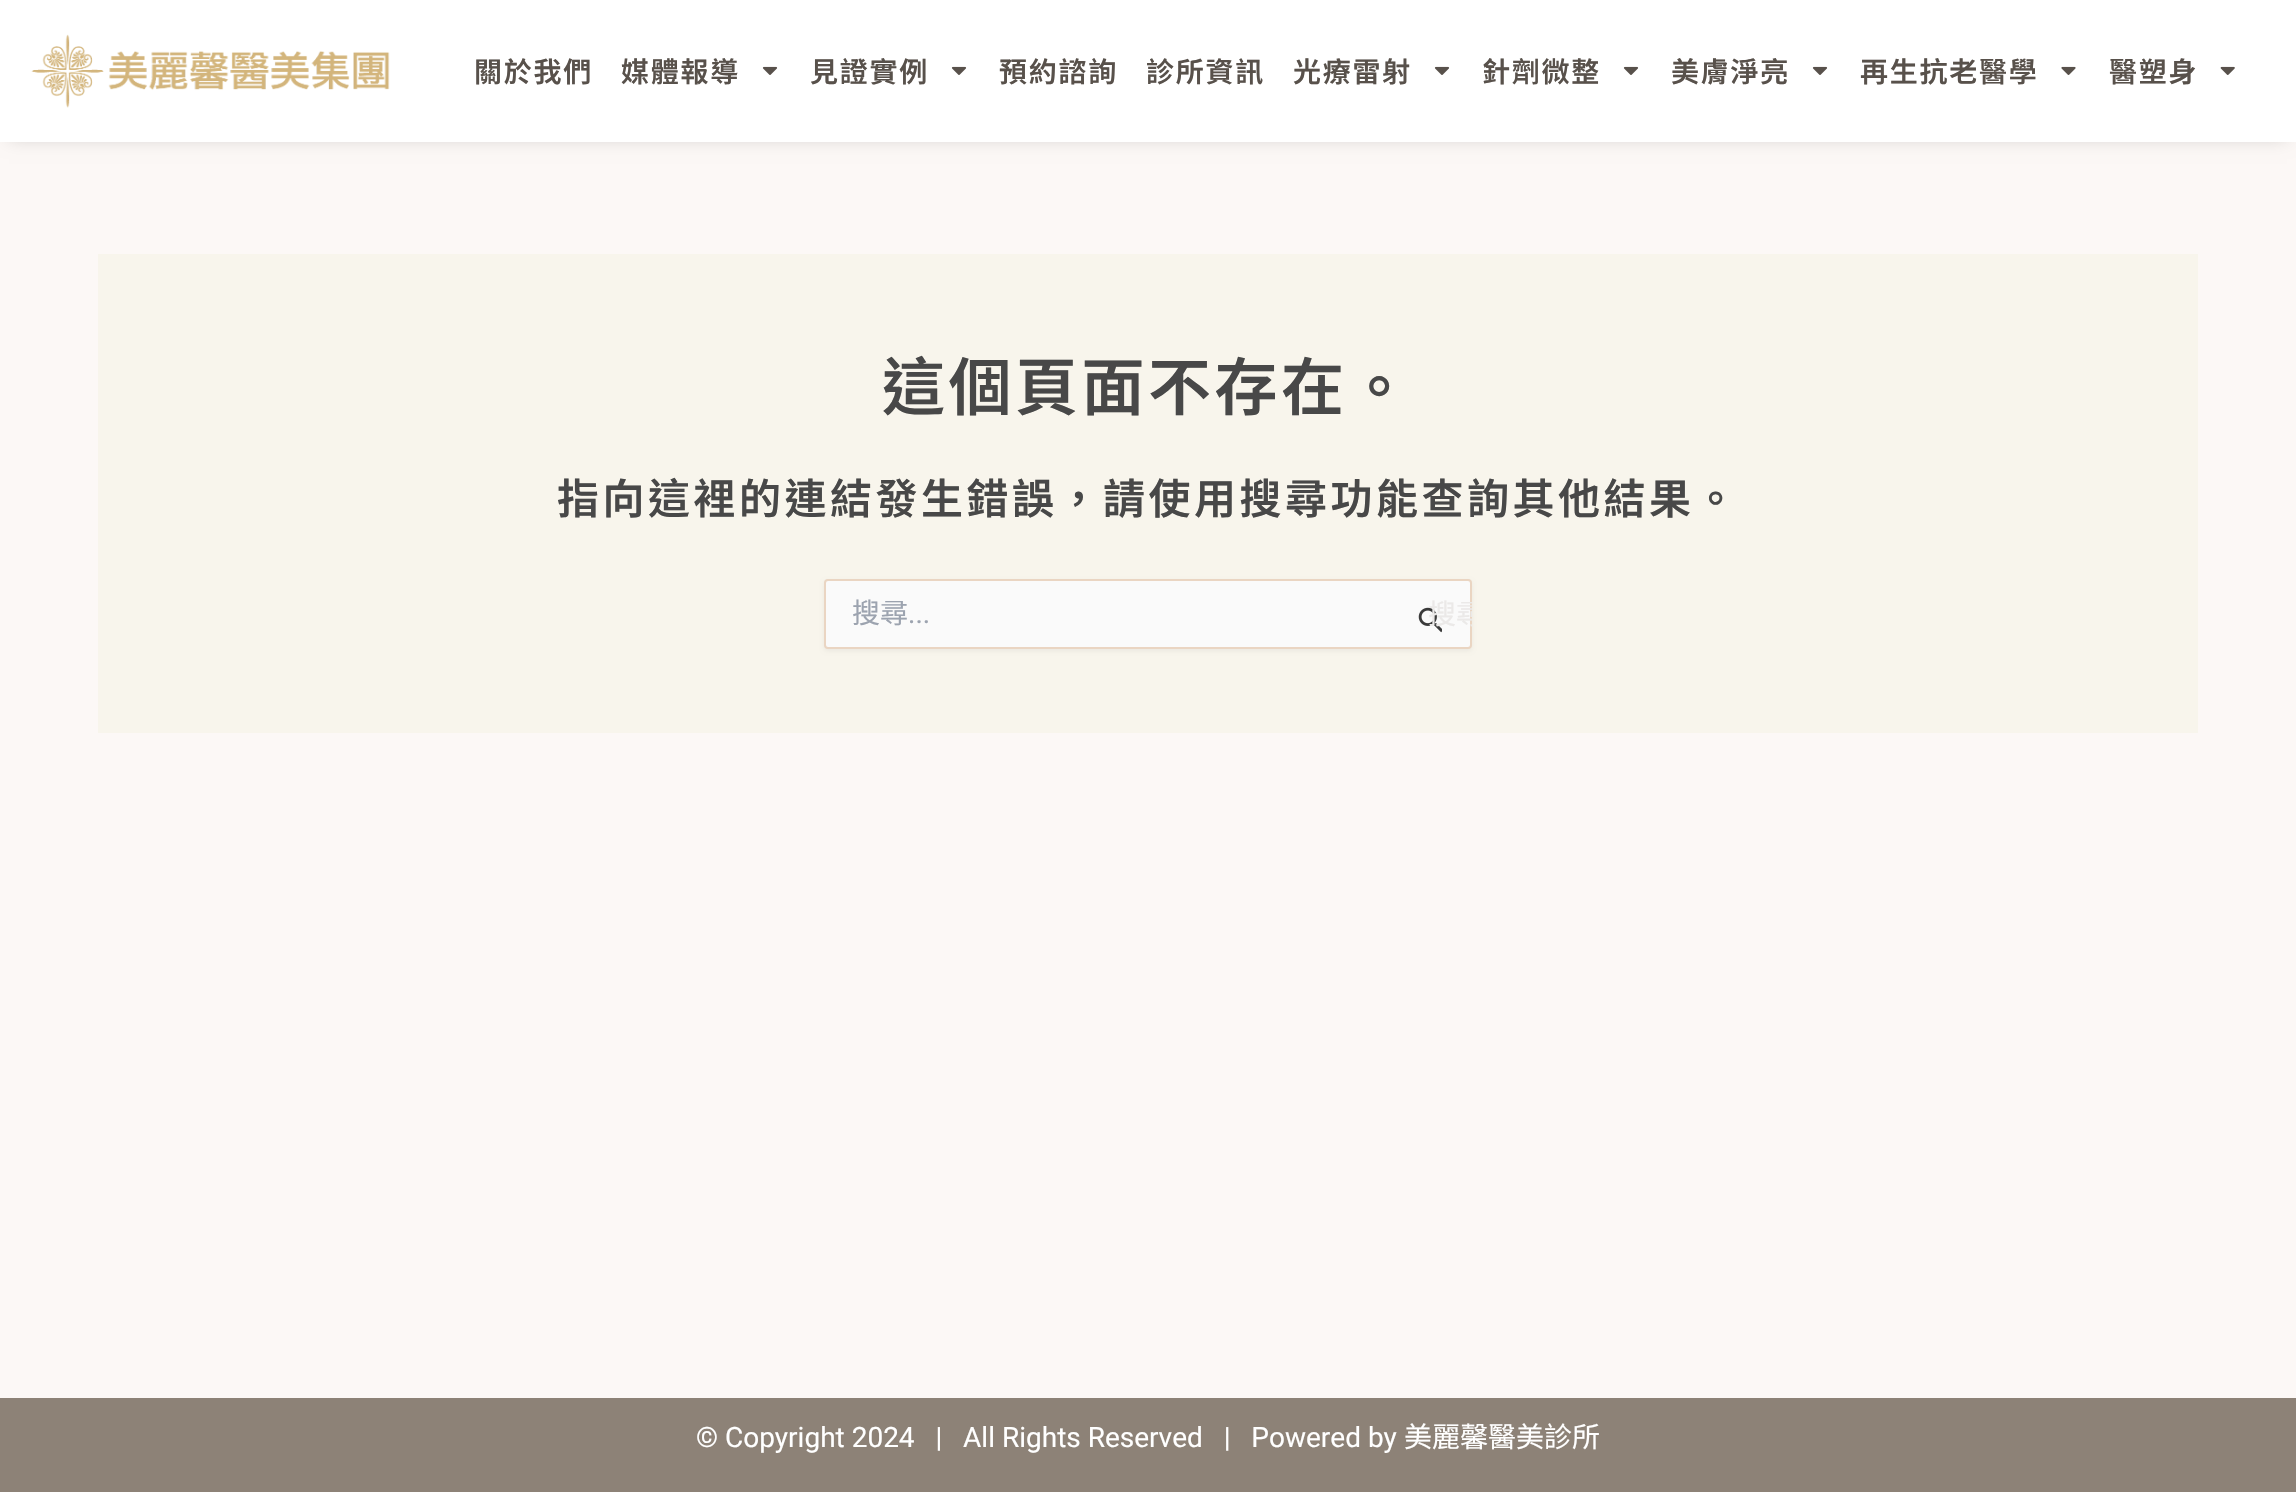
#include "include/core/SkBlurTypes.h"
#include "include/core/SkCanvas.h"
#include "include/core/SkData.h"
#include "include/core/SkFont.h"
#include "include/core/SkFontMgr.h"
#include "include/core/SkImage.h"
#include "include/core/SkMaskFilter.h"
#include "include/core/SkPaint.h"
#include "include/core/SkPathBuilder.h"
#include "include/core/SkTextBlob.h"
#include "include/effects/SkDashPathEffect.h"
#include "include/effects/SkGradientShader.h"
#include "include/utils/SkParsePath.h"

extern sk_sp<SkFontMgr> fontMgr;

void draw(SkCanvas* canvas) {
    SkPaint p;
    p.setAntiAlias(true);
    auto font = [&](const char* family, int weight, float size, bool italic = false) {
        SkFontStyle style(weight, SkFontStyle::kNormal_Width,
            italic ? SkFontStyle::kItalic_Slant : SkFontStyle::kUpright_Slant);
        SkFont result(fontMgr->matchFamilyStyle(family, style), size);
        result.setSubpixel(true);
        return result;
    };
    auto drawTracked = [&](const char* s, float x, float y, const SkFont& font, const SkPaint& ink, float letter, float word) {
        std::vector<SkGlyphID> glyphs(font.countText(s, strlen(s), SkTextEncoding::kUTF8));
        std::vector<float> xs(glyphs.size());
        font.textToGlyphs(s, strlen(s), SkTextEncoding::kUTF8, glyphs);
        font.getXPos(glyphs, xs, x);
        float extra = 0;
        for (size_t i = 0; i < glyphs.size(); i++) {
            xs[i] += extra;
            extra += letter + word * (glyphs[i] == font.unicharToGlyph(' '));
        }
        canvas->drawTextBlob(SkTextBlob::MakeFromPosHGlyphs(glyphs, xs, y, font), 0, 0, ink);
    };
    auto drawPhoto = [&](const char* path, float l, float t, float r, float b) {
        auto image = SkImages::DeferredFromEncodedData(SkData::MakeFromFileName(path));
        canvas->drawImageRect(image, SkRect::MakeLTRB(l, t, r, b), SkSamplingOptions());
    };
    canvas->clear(0xFFFCF8F6);
    p.setColor(0x33000000);
    p.setMaskFilter(SkMaskFilter::MakeBlur(kNormal_SkBlurStyle, 9));
    canvas->drawRect(SkRect::MakeLTRB(9, 12, 2287, 137), p);
    p.setMaskFilter(nullptr);
    p.setColor(0xFFFFFFFF);
    canvas->drawRect(SkRect::MakeLTRB(0, 0, 2296, 142), p);
    drawPhoto("media/1.png", 31, 34, 390, 108);
    auto font1 = font("Noto Sans TC", 100, 28);
    p.setColor(0xFF58514B);
    drawTracked("關於我們", 474, 82, font1, p, 1.75f, 0);
    drawTracked("媒體報導", 621, 82, font1, p, 1.75f, 0);
    drawPhoto("media/2.png", 762, 66, 778, 75);
    drawTracked("見證實例", 810, 82, font1, p, 1.75f, 0);
    drawPhoto("media/2.png", 951, 66, 967, 75);
    {
        const struct { const char* s; float x, y; } items[] = {
            {"預約諮詢", 999, 82},
            {"診所資訊", 1146, 82},
            {"光療雷射", 1293, 82},
        };
        for (auto [s, x, y] : items) {
            drawTracked(s, x, y, font1, p, 1.75f, 0);
        }
    }
    drawPhoto("media/2.png", 1434, 66, 1450, 75);
    drawTracked("針劑微整", 1482, 82, font1, p, 1.75f, 0);
    drawPhoto("media/2.png", 1623, 66, 1639, 75);
    drawTracked("美膚淨亮", 1671, 82, font1, p, 1.75f, 0);
    drawPhoto("media/2.png", 1812, 66, 1828, 75);
    drawTracked("再生抗老醫學", 1860, 82, font1, p, 1.75f, 0);
    drawPhoto("media/3.png", 2061, 66, 2076, 75);
    drawTracked("醫塑身", 2109, 82, font1, p, 1.75f, 0);
    drawPhoto("media/4.png", 2220, 66, 2235, 75);
    p.setColor(0xFFF8F5EC);
    canvas->drawRect(SkRect::MakeLTRB(98, 254, 2198, 733), p);
    auto font2 = font("Noto Sans TC", 100, 63);
    p.setColor(0xFF484848);
    drawTracked("這個頁面不存在。", 882, 410, font2, p, 3.5f, 0);
    auto font3 = font("Noto Sans TC", 100, 42);
    drawTracked("指向這裡的連結發生錯誤，請使用搜尋功能查詢其他結果。", 557, 514, font3, p, 3.5f, 0);
    p.setColor(0x0D000000);
    p.setMaskFilter(SkMaskFilter::MakeBlur(kNormal_SkBlurStyle, 2));
    canvas->drawRoundRect(SkRect::MakeLTRB(824, 581, 1472, 651), 4, 4, p);
    p.setMaskFilter(nullptr);
    p.setColor(0xFFFAFAFA);
    canvas->drawRoundRect(SkRect::MakeLTRB(825, 580, 1471, 648), 3, 3, p);
    p.setStyle(SkPaint::kStroke_Style);
    p.setStrokeWidth(2);
    p.setColor(0xFFEAD5C2);
    canvas->drawRoundRect(SkRect::MakeLTRB(825, 580, 1471, 648), 3, 3, p);
    auto font4 = font("Noto Sans CJK TC", 400, 28);
    p.setStyle(SkPaint::kFill_Style);
    p.setColor(0xFF9CA3AF);
    canvas->drawString("搜尋", 852, 623, font4, p);
    auto font5 = font("Roboto", 400, 28);
    canvas->drawString("...", 908, 623, font5, p);
    drawPhoto("media/5.png", 1418, 607, 1442, 633);
    canvas->save();
    canvas->clipPath(SkPathBuilder().moveTo(1397, 579).lineTo(1468, 579).cubicTo(1470, 579, 1472, 581, 1472, 583).lineTo(1472, 649).cubicTo(1472, 651, 1470, 653, 1468, 653).lineTo(1397, 653).cubicTo(1395, 653, 1393, 651, 1393, 649).lineTo(1393, 583).cubicTo(1393, 581, 1395, 579, 1397, 579).close().detach(), true);
    p.setColor(0xFFEBE9E8);
    canvas->drawString("搜尋", 1428, 624, font4, p);
    canvas->restore();
    p.setColor(0xFF8D8277);
    canvas->drawRect(SkRect::MakeLTRB(0, 1398, 2296, 1492), p);
    p.setColor(0xFFFFFFFF);
    canvas->drawString("© Copyright 2024   |   All Rights Reserved   |   Powered by", 696, 1447, font5, p);
    canvas->drawString("美麗馨醫美診所", 1404, 1447, font4, p);
}
